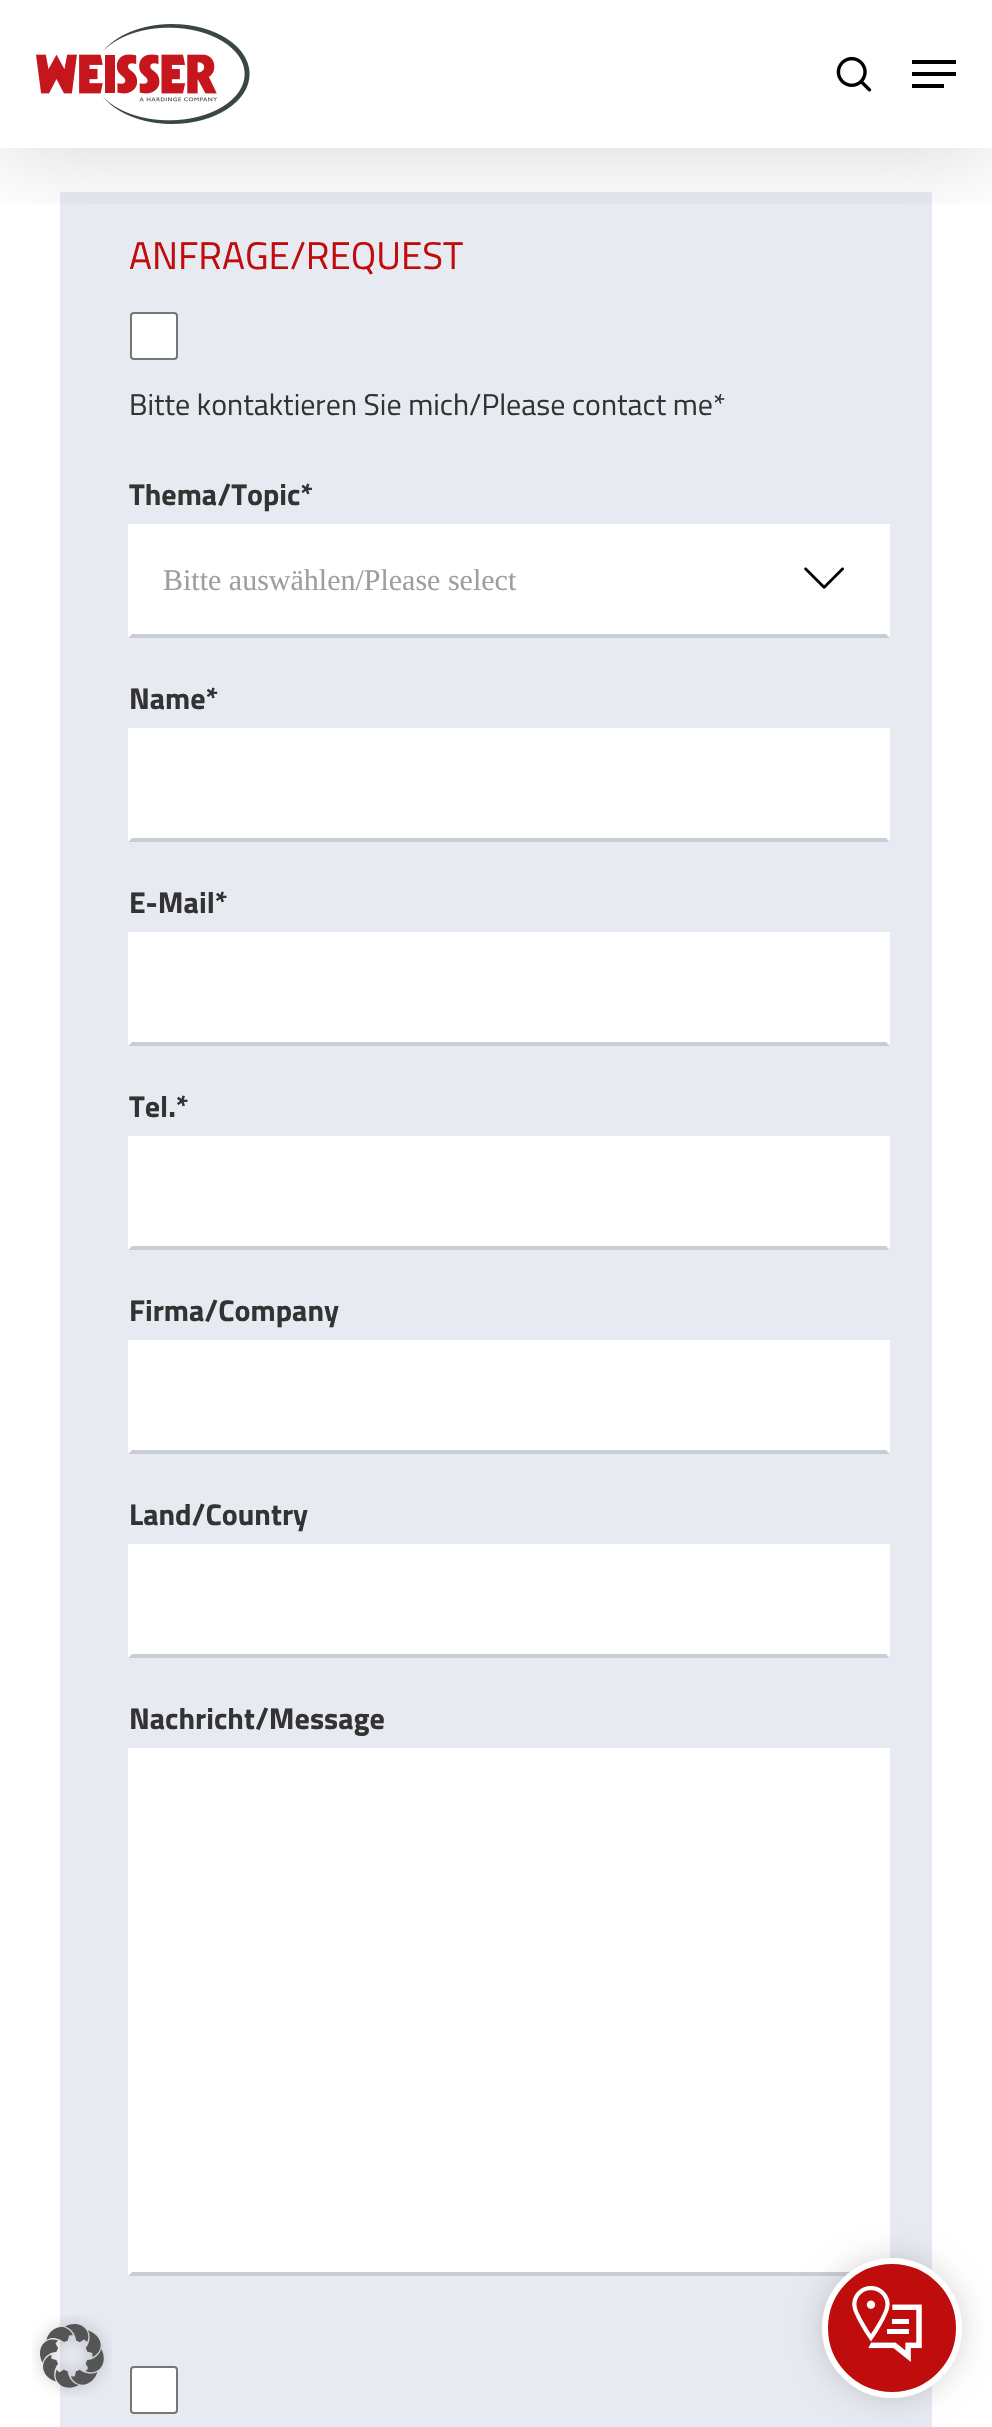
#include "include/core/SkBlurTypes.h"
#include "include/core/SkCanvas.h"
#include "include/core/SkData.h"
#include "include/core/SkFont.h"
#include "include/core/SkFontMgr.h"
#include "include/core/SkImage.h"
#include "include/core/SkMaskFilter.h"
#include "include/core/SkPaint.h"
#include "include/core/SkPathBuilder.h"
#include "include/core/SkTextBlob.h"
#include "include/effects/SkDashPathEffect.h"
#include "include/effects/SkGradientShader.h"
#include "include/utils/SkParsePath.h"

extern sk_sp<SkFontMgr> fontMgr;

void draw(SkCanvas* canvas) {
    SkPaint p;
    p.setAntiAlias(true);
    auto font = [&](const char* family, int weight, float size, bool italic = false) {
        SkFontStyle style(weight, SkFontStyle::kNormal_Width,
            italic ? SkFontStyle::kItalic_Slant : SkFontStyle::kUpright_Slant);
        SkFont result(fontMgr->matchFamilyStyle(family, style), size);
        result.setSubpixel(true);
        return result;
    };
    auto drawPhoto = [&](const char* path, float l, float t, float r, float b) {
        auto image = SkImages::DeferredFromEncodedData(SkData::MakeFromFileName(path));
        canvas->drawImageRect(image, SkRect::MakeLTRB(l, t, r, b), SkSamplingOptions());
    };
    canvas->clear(0xFFFFFFFF);
    p.setColor(0xFFE7EAF1);
    canvas->drawRect(SkRect::MakeLTRB(60, 192, 932, 2427), p);
    canvas->save();
    canvas->clipRect(SkRect::MakeLTRB(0, 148, 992, 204));
    p.setColor(0x26000000);
    p.setMaskFilter(SkMaskFilter::MakeBlur(kNormal_SkBlurStyle, 45));
    canvas->drawRect(SkRect::MakeLTRB(0, 6, 992, 154), p);
    p.setMaskFilter(nullptr);
    canvas->restore();
    drawPhoto("media/1.png", 36, 24, 250, 124);
    drawPhoto("media/2.png", 836, 56, 872, 92);
    {
        const struct { float l, t, r, b; SkColor color; } items[] = {
            {912, 60, 956, 64, 0xFF000000},
            {912, 84, 944, 88, 0xFF000000},
            {912, 72, 956, 76, 0xFF000000},
        };
        for (auto [l, t, r, b, color] : items) {
            p.setColor(color);
            canvas->drawRect(SkRect::MakeLTRB(l, t, r, b), p);
        }
    }
    auto font1 = font("Titillium Web", 400, 38.5f);
    p.setColor(0xFFC00C0D);
    canvas->drawString("ANFRAGE/REQUEST", 129, 269, font1, p);
    p.setColor(0xFFFFFFFF);
    canvas->drawRoundRect(SkRect::MakeLTRB(131, 313, 177, 359), 3, 3, p);
    p.setStyle(SkPaint::kStroke_Style);
    p.setStrokeWidth(2);
    p.setColor(0xFF767676);
    canvas->drawRoundRect(SkRect::MakeLTRB(131, 313, 177, 359), 3, 3, p);
    auto font2 = font("Titillium Web", 400, 30);
    p.setStyle(SkPaint::kFill_Style);
    p.setColor(0xFF333333);
    canvas->drawString("Bitte kontaktieren Sie mich/Please contact me*", 129, 415, font2, p);
    auto font3 = font("Titillium Web", 700, 30);
    canvas->drawString("Thema/Topic*", 129, 505, font3, p);
    p.setColor(0xFFFFFFFF);
    canvas->drawRect(SkRect::MakeLTRB(128, 524, 890, 638), p);
    drawPhoto("media/3.png", 804, 567, 844, 589);
    p.setColor(0xFFC9CDD6);
    canvas->drawPath(SkPathBuilder().moveTo(890, 638).lineTo(128, 638).lineTo(132, 634).lineTo(886, 634).close().detach(), p);
    auto font4 = font("Liberation Serif", 400, 30);
    p.setColor(0xFF9E9E9E);
    canvas->drawString("Bitte auswählen/Please select", 163, 590, font4, p);
    p.setColor(0xFF333333);
    canvas->drawString("Name*", 129, 709, font3, p);
    p.setColor(0xFFFFFFFF);
    canvas->drawRect(SkRect::MakeLTRB(128, 728, 890, 842), p);
    p.setColor(0xFFC9CDD6);
    canvas->drawPath(SkPathBuilder().moveTo(890, 842).lineTo(128, 842).lineTo(132, 838).lineTo(886, 838).close().detach(), p);
    p.setColor(0xFF333333);
    canvas->drawString("E-Mail*", 129, 913, font3, p);
    p.setColor(0xFFFFFFFF);
    canvas->drawRect(SkRect::MakeLTRB(128, 932, 890, 1046), p);
    p.setColor(0xFFC9CDD6);
    canvas->drawPath(SkPathBuilder().moveTo(890, 1046).lineTo(128, 1046).lineTo(132, 1042).lineTo(886, 1042).close().detach(), p);
    p.setColor(0xFF333333);
    canvas->drawString("Tel.*", 129, 1117, font3, p);
    p.setColor(0xFFFFFFFF);
    canvas->drawRect(SkRect::MakeLTRB(128, 1136, 890, 1250), p);
    p.setColor(0xFFC9CDD6);
    canvas->drawPath(SkPathBuilder().moveTo(890, 1250).lineTo(128, 1250).lineTo(132, 1246).lineTo(886, 1246).close().detach(), p);
    p.setColor(0xFF333333);
    canvas->drawString("Firma/Company", 129, 1321, font3, p);
    p.setColor(0xFFFFFFFF);
    canvas->drawRect(SkRect::MakeLTRB(128, 1340, 890, 1454), p);
    p.setColor(0xFFC9CDD6);
    canvas->drawPath(SkPathBuilder().moveTo(890, 1454).lineTo(128, 1454).lineTo(132, 1450).lineTo(886, 1450).close().detach(), p);
    p.setColor(0xFF333333);
    canvas->drawString("Land/Country", 129, 1525, font3, p);
    p.setColor(0xFFFFFFFF);
    canvas->drawRect(SkRect::MakeLTRB(128, 1544, 890, 1658), p);
    p.setColor(0xFFC9CDD6);
    canvas->drawPath(SkPathBuilder().moveTo(890, 1658).lineTo(128, 1658).lineTo(132, 1654).lineTo(886, 1654).close().detach(), p);
    p.setColor(0xFF333333);
    canvas->drawString("Nachricht/Message", 129, 1729, font3, p);
    p.setColor(0xFFFFFFFF);
    canvas->drawRect(SkRect::MakeLTRB(128, 1748, 890, 2276), p);
    p.setColor(0xFFC9CDD6);
    canvas->drawPath(SkPathBuilder().moveTo(890, 2276).lineTo(128, 2276).lineTo(132, 2272).lineTo(886, 2272).close().detach(), p);
    p.setColor(0xFFFFFFFF);
    canvas->drawRoundRect(SkRect::MakeLTRB(131, 2367, 177, 2413), 3, 3, p);
    p.setStyle(SkPaint::kStroke_Style);
    p.setColor(0xFF767676);
    canvas->drawRoundRect(SkRect::MakeLTRB(131, 2367, 177, 2413), 3, 3, p);
    drawPhoto("media/4.png", 32, 2316, 112, 2396);
    p.setStyle(SkPaint::kFill_Style);
    p.setColor(0x29000000);
    p.setMaskFilter(SkMaskFilter::MakeBlur(kNormal_SkBlurStyle, 15));
    canvas->drawRoundRect(SkRect::MakeLTRB(822, 2258, 962, 2398), 70, 70, p);
    p.setMaskFilter(nullptr);
    p.setColor(0xFFBF0C0D);
    canvas->drawCircle(892, 2328, 67, p);
    p.setStyle(SkPaint::kStroke_Style);
    p.setStrokeWidth(6);
    p.setColor(0xFFFFFFFF);
    canvas->drawCircle(892, 2328, 67, p);
    drawPhoto("media/5.png", 852, 2286, 922, 2362);
}
